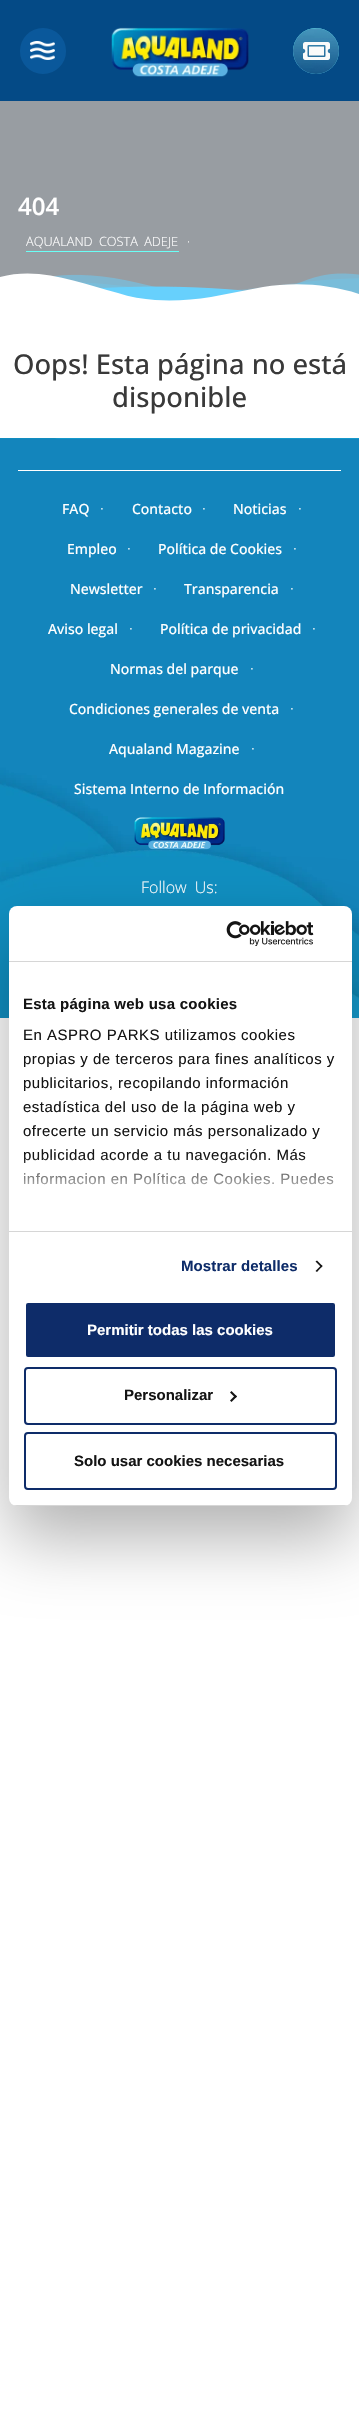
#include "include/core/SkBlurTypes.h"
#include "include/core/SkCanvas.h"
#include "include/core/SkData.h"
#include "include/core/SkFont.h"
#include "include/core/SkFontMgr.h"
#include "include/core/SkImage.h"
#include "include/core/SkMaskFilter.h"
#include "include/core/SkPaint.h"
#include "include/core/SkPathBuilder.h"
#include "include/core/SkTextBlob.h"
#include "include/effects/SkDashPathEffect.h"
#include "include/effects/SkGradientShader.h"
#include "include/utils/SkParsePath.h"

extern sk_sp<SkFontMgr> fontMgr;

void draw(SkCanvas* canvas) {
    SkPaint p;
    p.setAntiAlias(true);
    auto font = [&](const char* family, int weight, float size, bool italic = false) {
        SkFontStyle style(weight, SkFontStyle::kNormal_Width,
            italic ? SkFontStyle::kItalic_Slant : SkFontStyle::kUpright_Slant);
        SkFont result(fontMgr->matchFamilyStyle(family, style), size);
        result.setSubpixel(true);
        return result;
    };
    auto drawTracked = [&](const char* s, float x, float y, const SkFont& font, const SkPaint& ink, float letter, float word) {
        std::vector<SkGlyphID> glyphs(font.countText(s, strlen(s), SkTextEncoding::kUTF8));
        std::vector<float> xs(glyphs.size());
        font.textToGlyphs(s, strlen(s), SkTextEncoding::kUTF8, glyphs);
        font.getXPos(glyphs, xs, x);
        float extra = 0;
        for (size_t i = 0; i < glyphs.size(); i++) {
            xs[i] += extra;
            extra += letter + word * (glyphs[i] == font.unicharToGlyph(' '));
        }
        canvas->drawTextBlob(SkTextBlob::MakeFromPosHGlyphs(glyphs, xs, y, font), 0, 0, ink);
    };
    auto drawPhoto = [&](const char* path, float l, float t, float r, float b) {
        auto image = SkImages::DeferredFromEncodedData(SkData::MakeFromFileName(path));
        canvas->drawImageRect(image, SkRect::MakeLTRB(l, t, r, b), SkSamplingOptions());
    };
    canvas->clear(0xFFFFFFFF);
    p.setColor(0xFF044A86);
    canvas->drawRect(SkRect::MakeLTRB(0, 0, 359, 101), p);
    p.setColor(0xFF0A589B);
    canvas->drawCircle(43, 51, 24, p);
    p.setStyle(SkPaint::kStroke_Style);
    p.setStrokeWidth(2);
    p.setColor(0xFF044A86);
    canvas->drawCircle(43, 51, 24, p);
    drawPhoto("media/1.png", 30, 41, 55, 60);
    drawPhoto("media/2.png", 111, 27, 249, 77);
    drawPhoto("media/3.png", 293, 28, 339, 74);
    drawPhoto("media/4.png", 293, 28, 339, 74);
    drawPhoto("media/5.png", 303, 42, 330, 60);
    p.setStyle(SkPaint::kFill_Style);
    p.setColor(0xFF989DA2);
    canvas->drawRect(SkRect::MakeLTRB(0, 101, 359, 294), p);
    auto font1 = font("Open Sans", 600, 24);
    p.setColor(0xFFFFFFFF);
    canvas->drawString("404", 18, 215, font1, p);
    p.setColor(0xFF6AFFF6);
    canvas->drawRect(SkRect::MakeLTRB(26, 251, 179, 252), p);
    auto font2 = font("Open Sans", 300, 12.75f);
    p.setColor(0xFFFFFFFF);
    drawTracked("AQUALAND COSTA ADEJE", 26, 246, font2, p, 0, 3);
    canvas->drawString("·", 187, 246, font2, p);
    drawPhoto("media/6.png", 54, 273, 359, 301);
    canvas->drawPath(SkPathBuilder().moveTo(263, 287).lineTo(211, 297).cubicTo(193, 300, 174, 301, 155, 300).cubicTo(143, 299, 130, 297, 118, 293).cubicTo(80, 283, 40, 266, 0, 277).lineTo(0, 301).lineTo(359, 301).lineTo(359, 294).cubicTo(328, 284, 295, 282, 263, 287).close().detach(), p);
    auto font3 = font("Open Sans", 500, 27.4f);
    p.setColor(0xFF393939);
    canvas->drawString("Oops! Esta página no está", 13, 374, font3, p);
    canvas->drawString("disponible", 112, 407, font3, p);
    drawPhoto("media/7.png", 0, 438, 359, 1018);
    p.setColor(0xFFFFFFFF);
    canvas->drawRect(SkRect::MakeLTRB(18, 470, 341, 471), p);
    auto font4 = font("Open Sans", 500, 14);
    canvas->drawString("FAQ", 62, 514, font4, p);
    auto font5 = font("Open Sans", 300, 16);
    canvas->drawString("·", 100, 514, font5, p);
    canvas->drawString("Contacto", 132, 514, font4, p);
    canvas->drawString("·", 202, 514, font5, p);
    canvas->drawString("Noticias", 233, 514, font4, p);
    canvas->drawString("·", 298, 514, font5, p);
    canvas->drawString("Empleo", 67, 554, font4, p);
    canvas->drawString("·", 127, 554, font5, p);
    canvas->drawString("Política de Cookies", 158, 554, font4, p);
    canvas->drawString("·", 293, 554, font5, p);
    canvas->drawString("Newsletter", 70, 594, font4, p);
    canvas->drawString("·", 153, 594, font5, p);
    canvas->drawString("Transparencia", 184, 594, font4, p);
    canvas->drawString("·", 290, 594, font5, p);
    canvas->drawString("Aviso legal", 48, 634, font4, p);
    canvas->drawString("·", 129, 634, font5, p);
    canvas->drawString("Política de privacidad", 160, 634, font4, p);
    canvas->drawString("·", 312, 634, font5, p);
    canvas->drawString("Normas del parque", 110, 674, font4, p);
    canvas->drawString("·", 250, 674, font5, p);
    canvas->drawString("Condiciones generales de venta", 69, 714, font4, p);
    canvas->drawString("·", 290, 714, font5, p);
    canvas->drawString("Aqualand Magazine", 109, 754, font4, p);
    canvas->drawString("·", 251, 754, font5, p);
    canvas->drawString("Sistema Interno de Información", 74, 794, font4, p);
    drawPhoto("media/8.png", 134, 817, 225, 850);
    drawTracked("Follow Us:", 141, 893, font5, p, 0, 4);
    p.setColor(0x4D000000);
    p.setMaskFilter(SkMaskFilter::MakeBlur(kNormal_SkBlurStyle, 34));
    canvas->drawRoundRect(SkRect::MakeLTRB(9, 938, 352, 1538), 8, 8, p);
    p.setMaskFilter(nullptr);
    p.setColor(0xFFFFFFFF);
    canvas->drawRoundRect(SkRect::MakeLTRB(9, 906, 352, 1506), 8, 8, p);
    p.setColor(0xFFD6D6D6);
    canvas->drawRect(SkRect::MakeLTRB(9, 961, 352, 962), p);
    drawPhoto("media/9.png", 226, 921, 314, 946);
    canvas->drawRect(SkRect::MakeLTRB(9, 1231, 352, 1232), p);
    auto font6 = font("Liberation Sans", 700, 15);
    p.setColor(0xFF141414);
    drawTracked("Esta página web usa cookies", 23, 1009, font6, p, 0.25f, 0);
    auto font7 = font("Liberation Sans", 400, 15);
    {
        const struct { const char* s; float x, y; } items[] = {
            {"En ASPRO PARKS utilizamos cookies", 23, 1040},
            {"propias y de terceros para fines analíticos y", 23, 1064},
            {"publicitarios, recopilando información", 23, 1088},
            {"estadística del uso de la página web y", 23, 1112},
            {"ofrecerte un servicio más personalizado y", 23, 1136},
            {"publicidad acorde a tu navegación. Más", 23, 1160},
            {"informacion en Política de Cookies. Puedes", 23, 1184},
        };
        for (auto [s, x, y] : items) {
            drawTracked(s, x, y, font7, p, 0.5f, 0);
        }
    }
    {
        const SkColor colors[] = {0xFFFFFFFF, 0xCCFFFFFF, 0x00FFFFFF};
        const float stops[] = {0, 0.5f, 1};
        const SkPoint ends[] = {{174, 1231}, {174, 1156}};
        p.setShader(SkGradientShader::MakeLinear(ends, colors, stops, 3, SkTileMode::kClamp));
        p.setAlpha(255);
    }
    canvas->drawRect(SkRect::MakeLTRB(24, 1157, 334, 1185), p);
    p.setShader(nullptr);
    p.setColor(0xFF0E2C69);
    drawTracked("Mostrar detalles", 181, 1271, font6, p, 0.1f, 0);
    p.setColor(0xFF141414);
    canvas->drawPath(SkPathBuilder().moveTo(317, 1260.5f).lineTo(322.5f, 1266).lineTo(321.5f, 1267.5f).lineTo(315.5f, 1261.5f).close().detach(), p);
    canvas->drawPath(SkPathBuilder().moveTo(321.5f, 1265).lineTo(322.5f, 1266).lineTo(317, 1272).lineTo(315.5f, 1271).close().detach(), p);
    canvas->save();
    canvas->clipPath(SkPathBuilder().moveTo(17, 906).lineTo(344, 906).cubicTo(348.5f, 906, 352, 909.5f, 352, 914).lineTo(352, 1498).cubicTo(352, 1502.5f, 348.5f, 1506, 344, 1506).lineTo(17, 1506).cubicTo(12.5f, 1506, 9, 1502.5f, 9, 1498).lineTo(9, 914).cubicTo(9, 909.5f, 12.5f, 906, 17, 906).close().detach(), true);
    p.setColor(0xFFD6D6D6);
    canvas->drawRect(SkRect::MakeLTRB(9, 1505, 352, 1506), p);
    canvas->restore();
    p.setColor(0xFF0E2C69);
    canvas->drawRoundRect(SkRect::MakeLTRB(25, 1302, 336, 1358), 3, 3, p);
    p.setStyle(SkPaint::kStroke_Style);
    p.setColor(0xFFFFFFFF);
    canvas->drawRoundRect(SkRect::MakeLTRB(25, 1302, 336, 1358), 3, 3, p);
    p.setStyle(SkPaint::kFill_Style);
    canvas->drawString("Permitir todas las cookies", 87, 1335, font6, p);
    p.setStyle(SkPaint::kStroke_Style);
    p.setColor(0xFF0E2C69);
    canvas->drawRoundRect(SkRect::MakeLTRB(25, 1368, 336, 1424), 3, 3, p);
    p.setStyle(SkPaint::kFill_Style);
    p.setColor(0xFF141414);
    canvas->drawString("Personalizar", 124, 1400, font6, p);
    canvas->drawPath(SkPathBuilder().moveTo(231.5f, 1391).lineTo(237, 1396.5f).lineTo(235.5f, 1398).lineTo(230, 1392.5f).close().detach(), p);
    canvas->drawPath(SkPathBuilder().moveTo(235.5f, 1395).lineTo(237, 1396.5f).lineTo(231.5f, 1402).lineTo(230, 1400.5f).close().detach(), p);
    p.setStyle(SkPaint::kStroke_Style);
    p.setColor(0xFF0E2C69);
    canvas->drawRoundRect(SkRect::MakeLTRB(25, 1433, 336, 1489), 3, 3, p);
    p.setStyle(SkPaint::kFill_Style);
    p.setColor(0xFF141414);
    canvas->drawString("Solo usar cookies necesarias", 74, 1466, font6, p);
}
